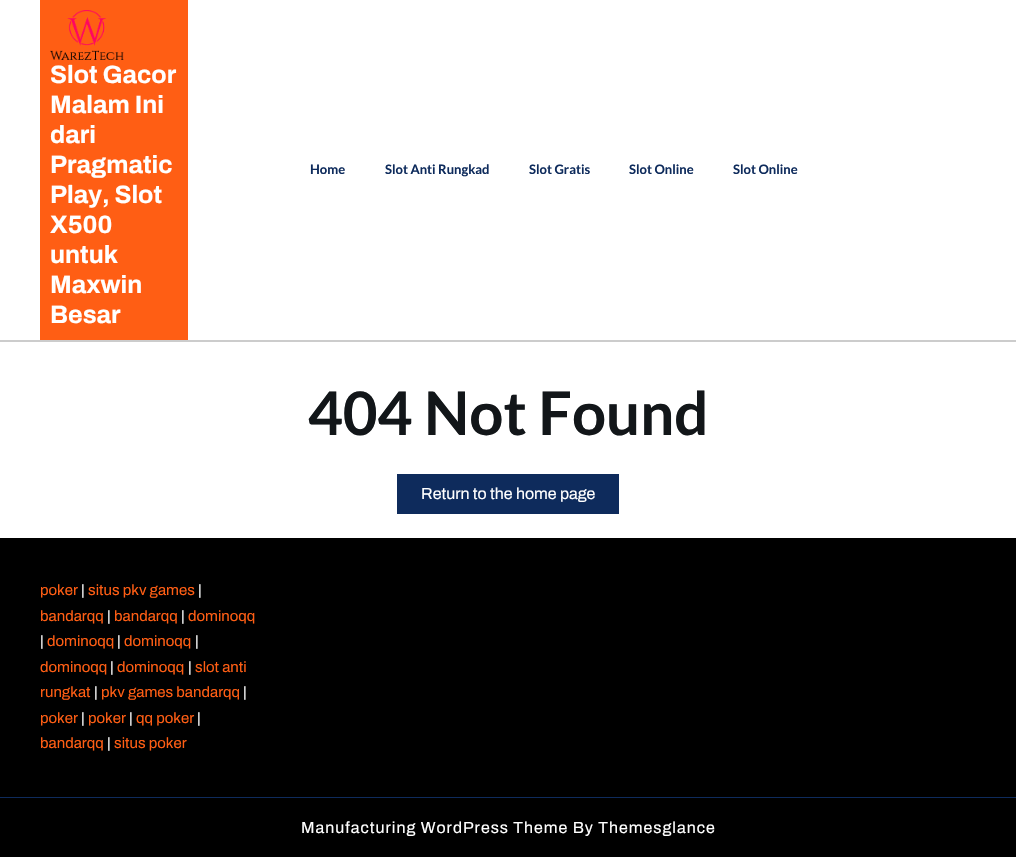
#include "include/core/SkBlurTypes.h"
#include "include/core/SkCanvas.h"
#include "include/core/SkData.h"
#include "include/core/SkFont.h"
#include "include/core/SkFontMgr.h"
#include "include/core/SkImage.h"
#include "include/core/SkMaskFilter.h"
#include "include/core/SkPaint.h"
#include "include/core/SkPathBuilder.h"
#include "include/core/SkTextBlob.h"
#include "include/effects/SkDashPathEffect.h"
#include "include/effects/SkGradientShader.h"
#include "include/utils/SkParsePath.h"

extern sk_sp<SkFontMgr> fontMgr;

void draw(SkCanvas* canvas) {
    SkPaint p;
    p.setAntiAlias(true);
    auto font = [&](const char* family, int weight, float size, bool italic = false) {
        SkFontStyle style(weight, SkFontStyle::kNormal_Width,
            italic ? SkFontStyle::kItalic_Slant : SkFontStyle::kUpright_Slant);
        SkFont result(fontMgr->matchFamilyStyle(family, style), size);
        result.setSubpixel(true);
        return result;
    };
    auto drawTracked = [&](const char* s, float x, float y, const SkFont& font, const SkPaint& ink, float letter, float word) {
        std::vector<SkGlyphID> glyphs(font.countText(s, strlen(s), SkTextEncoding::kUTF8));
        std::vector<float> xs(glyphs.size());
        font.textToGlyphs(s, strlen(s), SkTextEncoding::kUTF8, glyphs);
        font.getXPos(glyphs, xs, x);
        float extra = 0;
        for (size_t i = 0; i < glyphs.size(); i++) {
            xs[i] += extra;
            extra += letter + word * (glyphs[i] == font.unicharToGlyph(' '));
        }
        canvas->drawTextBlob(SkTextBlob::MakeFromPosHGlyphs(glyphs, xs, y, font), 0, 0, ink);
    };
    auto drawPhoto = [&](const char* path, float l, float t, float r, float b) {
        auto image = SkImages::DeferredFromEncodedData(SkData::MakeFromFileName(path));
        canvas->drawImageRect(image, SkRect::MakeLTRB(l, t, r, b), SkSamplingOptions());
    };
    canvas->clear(0xFFFFFFFF);
    p.setColor(0xFFCCCCCC);
    canvas->drawRect(SkRect::MakeLTRB(0, 340, 1016, 342), p);
    p.setColor(0xFFFF5E14);
    canvas->drawRect(SkRect::MakeLTRB(40, 0, 188, 340), p);
    drawPhoto("media/1.png", 50, 10, 124, 60);
    auto font1 = font("Archivo", 700, 25);
    p.setColor(0xFFFFFFFF);
    {
        const struct { const char* s; float x, y; } items[] = {
            {"Slot Gacor", 50, 83},
            {"Malam Ini", 50, 113},
            {"dari", 50, 143},
            {"Pragmatic", 50, 173},
            {"Play, Slot", 50, 203},
            {"X500", 50, 233},
            {"untuk", 50, 263},
            {"Maxwin", 50, 293},
            {"Besar", 50, 323},
        };
        for (auto [s, x, y] : items) {
            canvas->drawString(s, x, y, font1, p);
        }
    }
    auto font2 = font("Lato", 700, 13);
    p.setColor(0xFF0E2B5C);
    {
        const struct { const char* s; float x, y; } items[] = {
            {"Home", 310, 174},
            {"Slot Anti Rungkad", 385, 174},
            {"Slot Gratis", 529, 174},
            {"Slot Online", 629, 174},
            {"Slot Online", 733, 174},
        };
        for (auto [s, x, y] : items) {
            canvas->drawString(s, x, y, font2, p);
        }
    }
    auto font3 = font("Lato", 700, 60);
    p.setColor(0xFF121619);
    canvas->drawString("404 Not Found", 308, 435, font3, p);
    p.setColor(0xFF0E2B5C);
    canvas->drawRect(SkRect::MakeLTRB(397, 474, 619, 514), p);
    auto font4 = font("Archivo", 400, 16);
    p.setColor(0xFFFFFFFF);
    canvas->drawString("Return to the home page", 421, 499, font4, p);
    p.setColor(0xFF000000);
    canvas->drawRect(SkRect::MakeLTRB(0, 538, 1016, 797), p);
    auto font5 = font("Archivo", 400, 15);
    p.setColor(0xFFFF5E14);
    canvas->drawString("poker", 40, 595, font5, p);
    p.setColor(0xFFFFFFFF);
    canvas->drawString("|", 81, 595, font5, p);
    p.setColor(0xFFFF5E14);
    canvas->drawString("situs pkv games", 88, 595, font5, p);
    p.setColor(0xFFFFFFFF);
    canvas->drawString("|", 198, 595, font5, p);
    p.setColor(0xFFFF5E14);
    canvas->drawString("bandarqq", 40, 621, font5, p);
    p.setColor(0xFFFFFFFF);
    canvas->drawString("|", 107, 621, font5, p);
    p.setColor(0xFFFF5E14);
    canvas->drawString("bandarqq", 114, 621, font5, p);
    p.setColor(0xFFFFFFFF);
    canvas->drawString("|", 181, 621, font5, p);
    p.setColor(0xFFFF5E14);
    canvas->drawString("dominoqq", 188, 621, font5, p);
    p.setColor(0xFFFFFFFF);
    canvas->drawString("|", 40, 646, font5, p);
    p.setColor(0xFFFF5E14);
    canvas->drawString("dominoqq", 47, 646, font5, p);
    p.setColor(0xFFFFFFFF);
    canvas->drawString("|", 117, 646, font5, p);
    p.setColor(0xFFFF5E14);
    canvas->drawString("dominoqq", 124, 646, font5, p);
    p.setColor(0xFFFFFFFF);
    canvas->drawString("|", 195, 646, font5, p);
    p.setColor(0xFFFF5E14);
    canvas->drawString("dominoqq", 40, 672, font5, p);
    p.setColor(0xFFFFFFFF);
    canvas->drawString("|", 110, 672, font5, p);
    p.setColor(0xFFFF5E14);
    canvas->drawString("dominoqq", 117, 672, font5, p);
    p.setColor(0xFFFFFFFF);
    canvas->drawString("|", 188, 672, font5, p);
    p.setColor(0xFFFF5E14);
    canvas->drawString("slot anti", 195, 672, font5, p);
    canvas->drawString("rungkat", 40, 697, font5, p);
    p.setColor(0xFFFFFFFF);
    canvas->drawString("|", 94, 697, font5, p);
    p.setColor(0xFFFF5E14);
    canvas->drawString("pkv games bandarqq", 101, 697, font5, p);
    p.setColor(0xFFFFFFFF);
    canvas->drawString("|", 243, 697, font5, p);
    p.setColor(0xFFFF5E14);
    canvas->drawString("poker", 40, 723, font5, p);
    p.setColor(0xFFFFFFFF);
    canvas->drawString("|", 81, 723, font5, p);
    p.setColor(0xFFFF5E14);
    canvas->drawString("poker", 88, 723, font5, p);
    p.setColor(0xFFFFFFFF);
    canvas->drawString("|", 129, 723, font5, p);
    p.setColor(0xFFFF5E14);
    canvas->drawString("qq poker", 136, 723, font5, p);
    p.setColor(0xFFFFFFFF);
    canvas->drawString("|", 197, 723, font5, p);
    p.setColor(0xFFFF5E14);
    canvas->drawString("bandarqq", 40, 748, font5, p);
    p.setColor(0xFFFFFFFF);
    canvas->drawString("|", 107, 748, font5, p);
    p.setColor(0xFFFF5E14);
    canvas->drawString("situs poker", 114, 748, font5, p);
    p.setColor(0xFF000000);
    canvas->drawRect(SkRect::MakeLTRB(0, 798, 1016, 857), p);
    p.setColor(0xFF0E2B5C);
    canvas->drawRect(SkRect::MakeLTRB(0, 797, 1016, 798), p);
    p.setColor(0xFFFFFFFF);
    drawTracked("Manufacturing WordPress Theme By Themesglance", 301, 833, font4, p, 1, 0);
}
